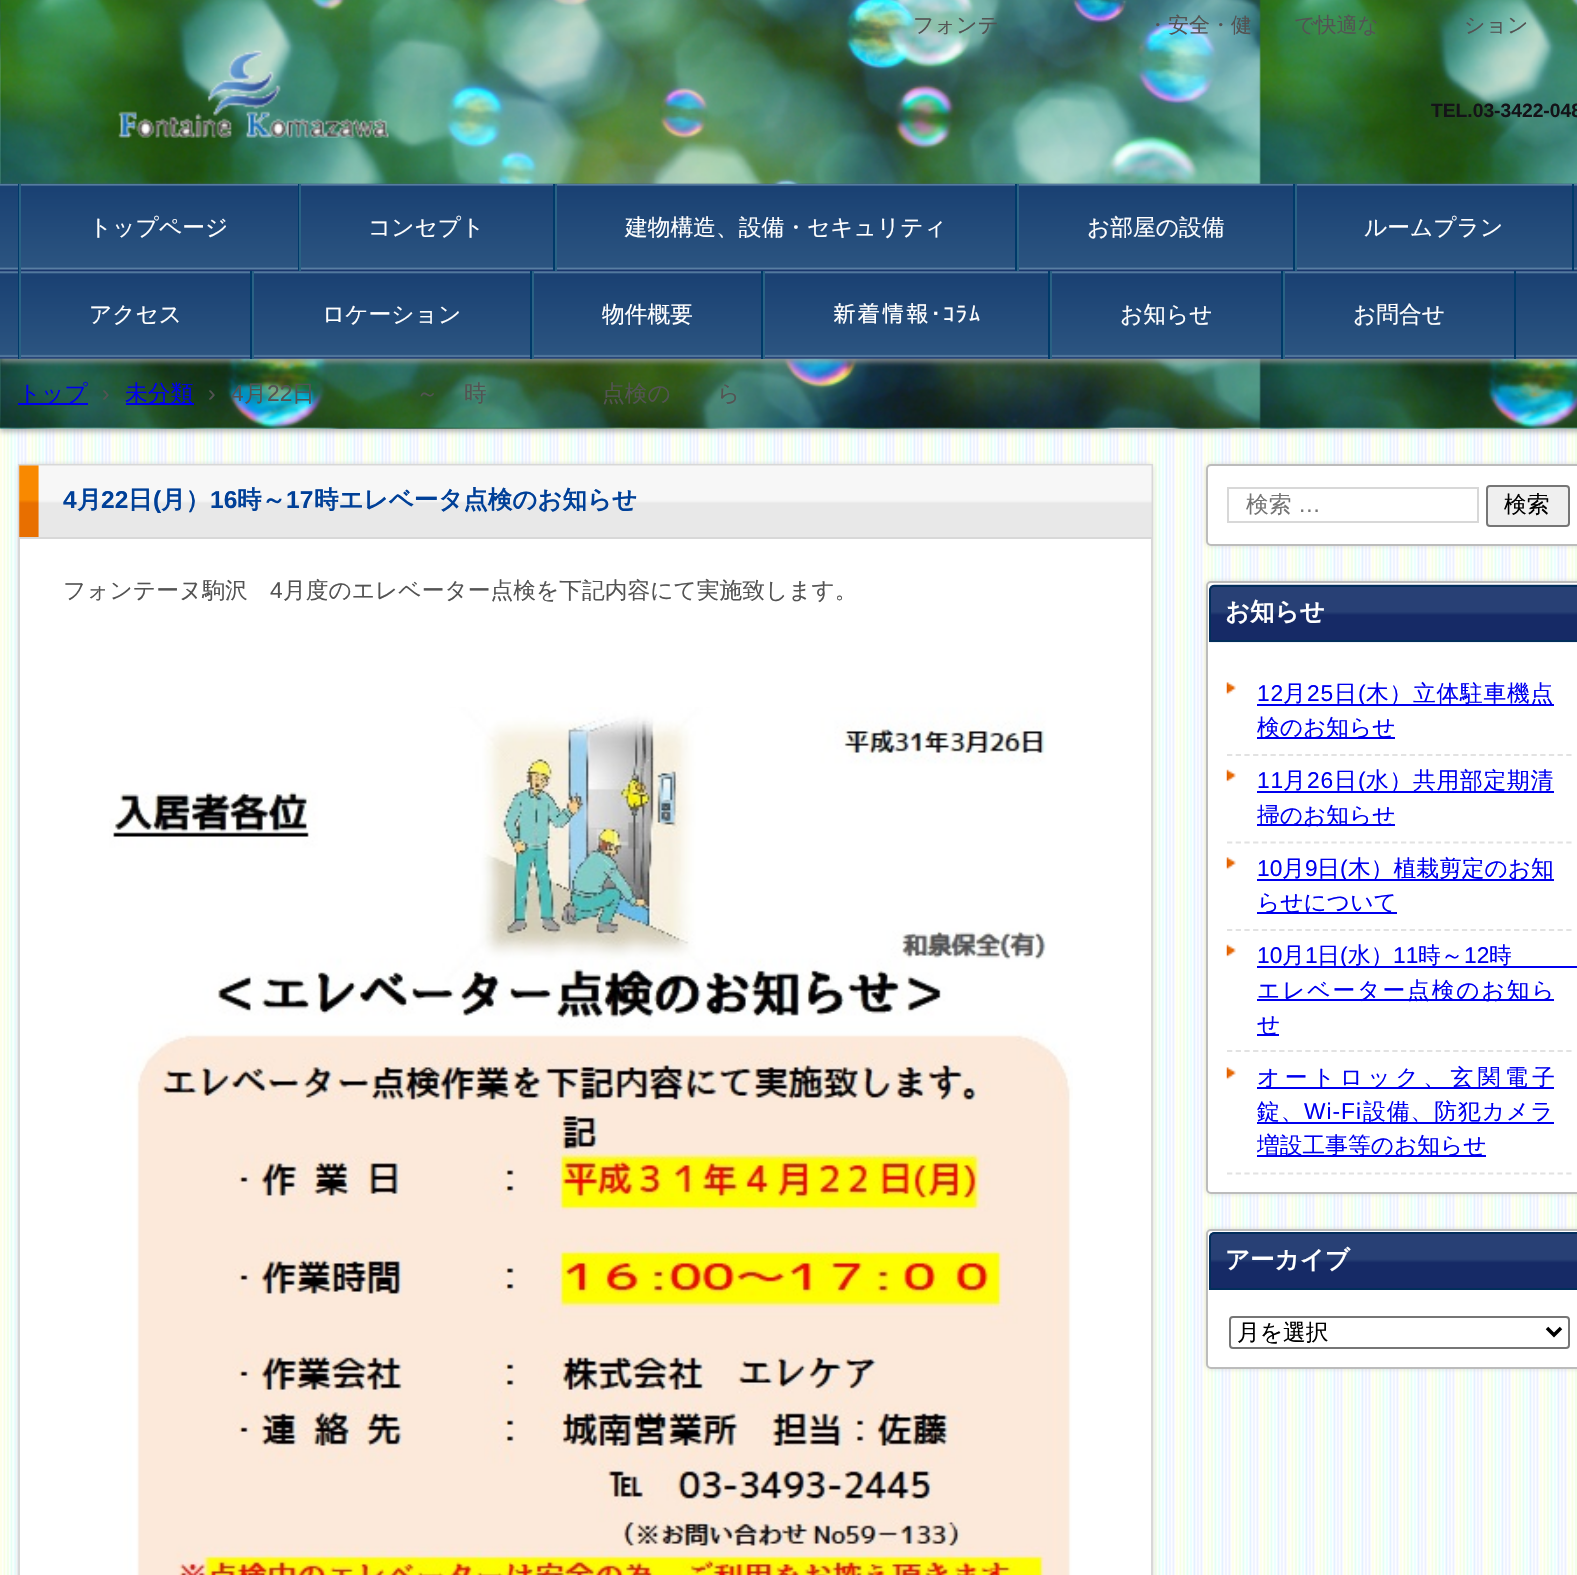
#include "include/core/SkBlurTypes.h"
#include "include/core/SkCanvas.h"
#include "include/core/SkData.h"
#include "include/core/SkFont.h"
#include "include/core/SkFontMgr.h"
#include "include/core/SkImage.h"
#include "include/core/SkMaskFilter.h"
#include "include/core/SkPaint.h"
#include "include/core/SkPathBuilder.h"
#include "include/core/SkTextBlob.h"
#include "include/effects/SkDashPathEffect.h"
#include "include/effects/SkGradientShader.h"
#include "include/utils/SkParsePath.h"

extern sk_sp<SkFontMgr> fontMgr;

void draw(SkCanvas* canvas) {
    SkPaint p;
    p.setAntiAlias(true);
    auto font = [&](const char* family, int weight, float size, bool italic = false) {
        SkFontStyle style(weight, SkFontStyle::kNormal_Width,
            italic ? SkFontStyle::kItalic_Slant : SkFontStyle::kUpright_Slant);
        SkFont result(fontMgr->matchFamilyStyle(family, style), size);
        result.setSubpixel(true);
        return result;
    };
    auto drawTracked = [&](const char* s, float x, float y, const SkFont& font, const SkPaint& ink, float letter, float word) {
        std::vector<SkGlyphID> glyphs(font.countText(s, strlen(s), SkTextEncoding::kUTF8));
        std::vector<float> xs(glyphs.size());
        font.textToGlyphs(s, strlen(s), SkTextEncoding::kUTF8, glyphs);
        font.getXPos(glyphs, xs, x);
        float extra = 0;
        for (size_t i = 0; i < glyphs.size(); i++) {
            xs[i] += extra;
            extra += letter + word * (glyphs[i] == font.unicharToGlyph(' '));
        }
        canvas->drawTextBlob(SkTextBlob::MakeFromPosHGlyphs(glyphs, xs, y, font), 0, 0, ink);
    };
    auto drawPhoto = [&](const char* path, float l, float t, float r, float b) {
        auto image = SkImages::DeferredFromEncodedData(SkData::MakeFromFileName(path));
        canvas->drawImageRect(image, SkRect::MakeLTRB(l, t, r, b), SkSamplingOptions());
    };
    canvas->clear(0xFFFFFFFF);
    drawPhoto("media/1.png", 0, 428, 1577, 1575);
    p.setColor(0xBFA0A0A0);
    p.setMaskFilter(SkMaskFilter::MakeBlur(kNormal_SkBlurStyle, 2.5f));
    canvas->drawRect(SkRect::MakeLTRB(0, 4, 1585, 432), p);
    p.setMaskFilter(nullptr);
    drawPhoto("media/2.png", 0, 0, 1577, 429);
    auto font1 = font("WenQuanYi Zen Hei", 500, 21);
    p.setColor(0xFF535353);
    {
        const struct { const char* s; float x, y; } items[] = {
            {"フォンテ", 913, 32},
            {"・安全・健", 1147, 32},
            {"で快適な", 1294, 32},
            {"ション", 1464, 32},
        };
        for (auto [s, x, y] : items) {
            canvas->drawString(s, x, y, font1, p);
        }
    }
    drawPhoto("media/3.png", 118, 50, 389, 138);
    auto font2 = font("Liberation Sans", 700, 19.25f);
    p.setColor(0xFF141318);
    canvas->drawString("TEL.03-3422-048", 1431, 117, font2, p);
    p.setColor(0xBFA0A0A0);
    p.setMaskFilter(SkMaskFilter::MakeBlur(kNormal_SkBlurStyle, 2.5f));
    canvas->drawRect(SkRect::MakeLTRB(0, 187, 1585, 362), p);
    p.setMaskFilter(nullptr);
    drawPhoto("media/4.png", 0, 183, 1577, 359);
    {
        const struct { float l, t, r, b; SkColor color; } items[] = {
            {18, 184, 19, 359, 0xFF003A69},
            {298, 184, 299, 271, 0xFF003A69},
            {19, 184, 21, 359, 0xFF2A6284},
        };
        for (auto [l, t, r, b, color] : items) {
            p.setColor(color);
            canvas->drawRect(SkRect::MakeLTRB(l, t, r, b), p);
        }
    }
    auto font3 = font("WenQuanYi Zen Hei", 500, 22.75f);
    p.setColor(0xFFFFFFFF);
    canvas->drawString("トップページ", 89, 235, font3, p);
    p.setColor(0xFF003A69);
    canvas->drawRect(SkRect::MakeLTRB(553, 184, 555, 271), p);
    p.setColor(0xFF2A6284);
    canvas->drawRect(SkRect::MakeLTRB(299, 184, 301, 271), p);
    p.setColor(0xFFFFFFFF);
    canvas->drawString("コンセプト", 368, 235, font3, p);
    p.setColor(0xFF003A69);
    canvas->drawRect(SkRect::MakeLTRB(1015, 184, 1017, 271), p);
    p.setColor(0xFF2A6284);
    canvas->drawRect(SkRect::MakeLTRB(555, 184, 557, 271), p);
    p.setColor(0xFFFFFFFF);
    canvas->drawString("建物構造、設備・セキュリティ", 625, 235, font3, p);
    p.setColor(0xFF003A69);
    canvas->drawRect(SkRect::MakeLTRB(1293, 184, 1295, 271), p);
    p.setColor(0xFF2A6284);
    canvas->drawRect(SkRect::MakeLTRB(1017, 184, 1019, 271), p);
    p.setColor(0xFFFFFFFF);
    canvas->drawString("お部屋の設備", 1087, 235, font3, p);
    p.setColor(0xFF003A69);
    canvas->drawRect(SkRect::MakeLTRB(1572, 184, 1574, 271), p);
    p.setColor(0xFF2A6284);
    canvas->drawRect(SkRect::MakeLTRB(1295, 184, 1297, 271), p);
    p.setColor(0xFFFFFFFF);
    canvas->drawString("ルームプラン", 1364, 235, font3, p);
    p.setColor(0xFF003A69);
    canvas->drawRect(SkRect::MakeLTRB(250, 271, 252, 359), p);
    p.setColor(0xFFFFFFFF);
    canvas->drawString("アクセス", 89, 322, font3, p);
    p.setColor(0xFF003A69);
    canvas->drawRect(SkRect::MakeLTRB(530, 271, 532, 359), p);
    p.setColor(0xFF2A6284);
    canvas->drawRect(SkRect::MakeLTRB(252, 271, 254, 359), p);
    p.setColor(0xFFFFFFFF);
    canvas->drawString("ロケーション", 322, 322, font3, p);
    p.setColor(0xFF003A69);
    canvas->drawRect(SkRect::MakeLTRB(761, 271, 763, 359), p);
    p.setColor(0xFF2A6284);
    canvas->drawRect(SkRect::MakeLTRB(532, 271, 534, 359), p);
    p.setColor(0xFFFFFFFF);
    canvas->drawString("物件概要", 602, 322, font3, p);
    p.setColor(0xFF003A69);
    canvas->drawRect(SkRect::MakeLTRB(1048, 271, 1050, 359), p);
    p.setColor(0xFF2A6284);
    canvas->drawRect(SkRect::MakeLTRB(763, 271, 765, 359), p);
    auto font4 = font("IPAPGothic", 400, 22.75f);
    p.setColor(0xFFFFFFFF);
    drawTracked("新着情報・ｺﾗﾑ", 833, 322, font4, p, 1.5f, 0);
    p.setColor(0xFF003A69);
    canvas->drawRect(SkRect::MakeLTRB(1281, 271, 1283, 359), p);
    p.setColor(0xFF2A6284);
    canvas->drawRect(SkRect::MakeLTRB(1050, 271, 1052, 359), p);
    p.setColor(0xFFFFFFFF);
    canvas->drawString("お知らせ", 1120, 322, font3, p);
    p.setColor(0xFF003A69);
    canvas->drawRect(SkRect::MakeLTRB(1514, 271, 1516, 359), p);
    p.setColor(0xFF2A6284);
    canvas->drawRect(SkRect::MakeLTRB(1283, 271, 1285, 359), p);
    p.setColor(0xFFFFFFFF);
    canvas->drawString("お問合せ", 1353, 322, font3, p);
    p.setColor(0xFF0000EE);
    canvas->drawRect(SkRect::MakeLTRB(18, 403, 88, 405), p);
    canvas->drawString("トップ", 18, 401, font3, p);
    auto font5 = font("Liberation Sans", 400, 22.75f);
    p.setColor(0xFF535353);
    canvas->drawString("›", 102, 401, font5, p);
    p.setColor(0xFF0000EE);
    canvas->drawRect(SkRect::MakeLTRB(126, 403, 194, 405), p);
    canvas->drawString("未分類", 125, 401, font3, p);
    p.setColor(0xFF535353);
    canvas->drawString("›", 208, 401, font5, p);
    canvas->drawString("4", 231, 401, font5, p);
    canvas->drawString("月", 244, 401, font3, p);
    canvas->drawString("22", 267, 401, font5, p);
    {
        const struct { const char* s; float x, y; } items[] = {
            {"日", 292, 401},
            {"～", 416, 401},
            {"時", 464, 401},
            {"点検の", 602, 401},
            {"ら", 717, 401},
        };
        for (auto [s, x, y] : items) {
            canvas->drawString(s, x, y, font3, p);
        }
    }
    p.setColor(0xBFCDCDCD);
    p.setMaskFilter(SkMaskFilter::MakeBlur(kNormal_SkBlurStyle, 2.5f));
    canvas->drawRoundRect(SkRect::MakeLTRB(18, 464, 1153, 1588), 5, 5, p);
    p.setMaskFilter(nullptr);
    p.setColor(0xFFFFFFFF);
    canvas->drawRect(SkRect::MakeLTRB(20, 539, 1151, 1575), p);
    p.setStyle(SkPaint::kStroke_Style);
    p.setStrokeWidth(2);
    p.setColor(0xFFD8D8D8);
    canvas->drawRect(SkRect::MakeLTRB(19, 465, 1152, 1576), p);
    drawPhoto("media/5.png", 19, 465, 1152, 537);
    p.setStyle(SkPaint::kFill_Style);
    canvas->drawRect(SkRect::MakeLTRB(19, 537, 1152, 539), p);
    auto font6 = font("Liberation Sans", 700, 24.5f);
    p.setColor(0xFF004098);
    canvas->drawString("4", 63, 508, font6, p);
    auto font7 = font("WenQuanYi Zen Hei", 700, 24.5f);
    canvas->drawString("月", 77, 508, font7, p);
    canvas->drawString("22", 101, 508, font6, p);
    canvas->drawString("日", 128, 508, font7, p);
    canvas->drawString("(", 153, 508, font6, p);
    canvas->drawString("月）", 161, 508, font7, p);
    canvas->drawString("16", 210, 508, font6, p);
    canvas->drawString("時～", 237, 508, font7, p);
    canvas->drawString("17", 286, 508, font6, p);
    canvas->drawString("時エレベータ点検のお知らせ", 314, 508, font7, p);
    p.setColor(0xFF535353);
    canvas->drawString("フォンテーヌ駒沢", 63, 598, font3, p);
    canvas->drawString("4", 270, 598, font5, p);
    canvas->drawString("月度のエレベーター点検を下記内容にて実施致します。", 283, 598, font3, p);
    drawPhoto("media/6.png", 109, 707, 1073, 1575);
    p.setColor(0xBFCDCDCD);
    p.setMaskFilter(SkMaskFilter::MakeBlur(kNormal_SkBlurStyle, 2.5f));
    canvas->drawRoundRect(SkRect::MakeLTRB(1206, 464, 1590, 546), 5, 5, p);
    p.setMaskFilter(nullptr);
    p.setColor(0xFFFFFFFF);
    canvas->drawRoundRect(SkRect::MakeLTRB(1207, 465, 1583, 545), 4, 4, p);
    p.setStyle(SkPaint::kStroke_Style);
    p.setColor(0xFFBCBCBC);
    canvas->drawRoundRect(SkRect::MakeLTRB(1207, 465, 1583, 545), 4, 4, p);
    p.setColor(0xFFD8D8D8);
    canvas->drawRect(SkRect::MakeLTRB(1228, 488, 1478, 522), p);
    p.setStyle(SkPaint::kFill_Style);
    p.setColor(0xFF757575);
    canvas->drawString("検索", 1246, 512, font3, p);
    canvas->drawString("…", 1298, 512, font5, p);
    p.setColor(0xFFEFEFEF);
    canvas->drawRoundRect(SkRect::MakeLTRB(1487, 486, 1569, 526), 3, 3, p);
    p.setStyle(SkPaint::kStroke_Style);
    p.setColor(0xFF767676);
    canvas->drawRoundRect(SkRect::MakeLTRB(1487, 486, 1569, 526), 3, 3, p);
    p.setStyle(SkPaint::kFill_Style);
    p.setColor(0xFF000000);
    canvas->drawString("検索", 1504, 512, font3, p);
    p.setColor(0xBFCDCDCD);
    p.setMaskFilter(SkMaskFilter::MakeBlur(kNormal_SkBlurStyle, 2.5f));
    canvas->drawRoundRect(SkRect::MakeLTRB(1206, 581, 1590, 1194), 5, 5, p);
    p.setMaskFilter(nullptr);
    p.setColor(0xFFFFFFFF);
    canvas->drawRoundRect(SkRect::MakeLTRB(1207, 582, 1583, 1193), 4, 4, p);
    p.setStyle(SkPaint::kStroke_Style);
    p.setColor(0xFFBCBCBC);
    canvas->drawRoundRect(SkRect::MakeLTRB(1207, 582, 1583, 1193), 4, 4, p);
    drawPhoto("media/7.png", 1209, 584, 1577, 643);
    p.setColor(0xFF022E5B);
    canvas->drawPath(SkPathBuilder().moveTo(1214, 586).lineTo(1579, 586).cubicTo(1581, 586, 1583, 588, 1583, 590).lineTo(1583, 641).lineTo(1210, 641).lineTo(1210, 590).cubicTo(1210, 588, 1212, 586, 1214, 586).close().detach(), p);
    p.setStyle(SkPaint::kFill_Style);
    p.setColor(0xFFFFFFFF);
    canvas->drawString("お知らせ", 1225, 620, font7, p);
    drawPhoto("media/8.png", 1226, 682, 1236, 695);
    p.setColor(0xFF0000EE);
    drawTracked("12", 1257, 701, font5, p, 0.75f, 0);
    drawTracked("月", 1283, 701, font3, p, 0.75f, 0);
    drawTracked("25", 1307, 701, font5, p, 0.75f, 0);
    drawTracked("日", 1334, 701, font3, p, 0.75f, 0);
    canvas->drawRect(SkRect::MakeLTRB(1257, 704, 1554, 706), p);
    drawTracked("(", 1358, 701, font5, p, 0.75f, 0);
    drawTracked("木）立体駐車機点", 1366, 701, font3, p, 0.75f, 0);
    canvas->drawRect(SkRect::MakeLTRB(1257, 737, 1395, 739), p);
    canvas->drawString("検のお知らせ", 1257, 735, font3, p);
    p.setStyle(SkPaint::kStroke_Style);
    p.setStrokeWidth(1.8f);
    p.setColor(0xFFE2E2E2);
    p.setPathEffect(SkDashPathEffect::Make({{5.25f, 3.45f}}, 0));
    canvas->drawPath(SkPathBuilder().moveTo(1227, 755).lineTo(1571.5f, 755).detach(), p);
    p.setPathEffect(nullptr);
    drawPhoto("media/9.png", 1226, 769, 1236, 783);
    p.setStyle(SkPaint::kFill_Style);
    p.setColor(0xFF0000EE);
    drawTracked("11", 1257, 788, font5, p, 0.75f, 0);
    drawTracked("月", 1283, 788, font3, p, 0.75f, 0);
    drawTracked("26", 1307, 788, font5, p, 0.75f, 0);
    drawTracked("日", 1334, 788, font3, p, 0.75f, 0);
    canvas->drawRect(SkRect::MakeLTRB(1257, 791, 1554, 793), p);
    drawTracked("(", 1358, 788, font5, p, 0.75f, 0);
    drawTracked("水）共用部定期清", 1366, 788, font3, p, 0.75f, 0);
    canvas->drawRect(SkRect::MakeLTRB(1257, 824, 1395, 826), p);
    canvas->drawString("掃のお知らせ", 1257, 823, font3, p);
    p.setStyle(SkPaint::kStroke_Style);
    p.setColor(0xFFE2E2E2);
    p.setPathEffect(SkDashPathEffect::Make({{5.25f, 3.45f}}, 0));
    canvas->drawPath(SkPathBuilder().moveTo(1227, 842.5f).lineTo(1571.5f, 842.5f).detach(), p);
    p.setPathEffect(nullptr);
    drawPhoto("media/8.png", 1226, 857, 1236, 870);
    p.setStyle(SkPaint::kFill_Style);
    p.setColor(0xFF0000EE);
    canvas->drawString("10", 1257, 876, font5, p);
    canvas->drawString("月", 1282, 876, font3, p);
    canvas->drawString("9", 1305, 876, font5, p);
    canvas->drawString("日", 1317, 876, font3, p);
    canvas->drawRect(SkRect::MakeLTRB(1257, 879, 1554, 881), p);
    canvas->drawString("(", 1340, 876, font5, p);
    canvas->drawString("木）植栽剪定のお知", 1348, 876, font3, p);
    canvas->drawRect(SkRect::MakeLTRB(1257, 912, 1397, 914), p);
    canvas->drawString("らせについて", 1257, 910, font3, p);
    p.setStyle(SkPaint::kStroke_Style);
    p.setColor(0xFFE2E2E2);
    p.setPathEffect(SkDashPathEffect::Make({{5.25f, 3.45f}}, 0));
    canvas->drawPath(SkPathBuilder().moveTo(1227, 930).lineTo(1571.5f, 930).detach(), p);
    p.setPathEffect(nullptr);
    drawPhoto("media/9.png", 1226, 944, 1236, 958);
    p.setStyle(SkPaint::kFill_Style);
    p.setColor(0xFF0000EE);
    canvas->drawString("10", 1257, 963, font5, p);
    canvas->drawString("月", 1282, 963, font3, p);
    canvas->drawString("1", 1305, 963, font5, p);
    canvas->drawString("日", 1317, 963, font3, p);
    canvas->drawRect(SkRect::MakeLTRB(1257, 966, 1577, 968), p);
    canvas->drawString("(", 1340, 963, font5, p);
    canvas->drawString("水）", 1348, 963, font3, p);
    canvas->drawString("11", 1393, 963, font5, p);
    canvas->drawString("時～", 1418, 963, font3, p);
    canvas->drawString("12", 1464, 963, font5, p);
    canvas->drawString("時", 1489, 963, font3, p);
    canvas->drawRect(SkRect::MakeLTRB(1257, 999, 1554, 1001), p);
    drawTracked("エレベーター点検のお知ら", 1257, 998, font3, p, 1.9f, 0);
    canvas->drawRect(SkRect::MakeLTRB(1257, 1034, 1279, 1036), p);
    canvas->drawString("せ", 1257, 1032, font3, p);
    p.setStyle(SkPaint::kStroke_Style);
    p.setColor(0xFFE2E2E2);
    p.setPathEffect(SkDashPathEffect::Make({{5.25f, 3.45f}}, 0));
    canvas->drawPath(SkPathBuilder().moveTo(1227, 1051).lineTo(1571.5f, 1051).detach(), p);
    p.setPathEffect(nullptr);
    p.setPathEffect(SkDashPathEffect::Make({{5.25f, 3.45f}}, 0));
    canvas->drawPath(SkPathBuilder().moveTo(1227, 1173.5f).lineTo(1571.5f, 1173.5f).detach(), p);
    p.setPathEffect(nullptr);
    drawPhoto("media/8.png", 1226, 1067, 1236, 1080);
    p.setStyle(SkPaint::kFill_Style);
    p.setColor(0xFF0000EE);
    canvas->drawRect(SkRect::MakeLTRB(1257, 1087, 1554, 1089), p);
    drawTracked("オートロック、玄関電子", 1257, 1085, font3, p, 4.5f, 0);
    drawTracked("錠、", 1257, 1119, font3, p, 1, 0);
    drawTracked("Wi-Fi", 1304, 1119, font5, p, 1, 0);
    canvas->drawRect(SkRect::MakeLTRB(1257, 1122, 1554, 1124), p);
    drawTracked("設備、防犯カメラ", 1363, 1119, font3, p, 1, 0);
    canvas->drawRect(SkRect::MakeLTRB(1257, 1155, 1486, 1157), p);
    canvas->drawString("増設工事等のお知らせ", 1257, 1153, font3, p);
    p.setColor(0xBFCDCDCD);
    p.setMaskFilter(SkMaskFilter::MakeBlur(kNormal_SkBlurStyle, 2.5f));
    canvas->drawRoundRect(SkRect::MakeLTRB(1206, 1229, 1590, 1369), 5, 5, p);
    p.setMaskFilter(nullptr);
    p.setColor(0xFFFFFFFF);
    canvas->drawRoundRect(SkRect::MakeLTRB(1207, 1230, 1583, 1368), 4, 4, p);
    p.setStyle(SkPaint::kStroke_Style);
    p.setStrokeWidth(2);
    p.setColor(0xFFBCBCBC);
    canvas->drawRoundRect(SkRect::MakeLTRB(1207, 1230, 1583, 1368), 4, 4, p);
    drawPhoto("media/10.png", 1209, 1232, 1577, 1288);
    p.setColor(0xFF022E5B);
    canvas->drawPath(SkPathBuilder().moveTo(1214, 1233).lineTo(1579, 1233).cubicTo(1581, 1233, 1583, 1235, 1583, 1237).lineTo(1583, 1289).lineTo(1210, 1289).lineTo(1210, 1237).cubicTo(1210, 1235, 1212, 1233, 1214, 1233).close().detach(), p);
    p.setStyle(SkPaint::kFill_Style);
    p.setColor(0xFFFFFFFF);
    canvas->drawString("アーカイブ", 1225, 1268, font7, p);
    p.setStyle(SkPaint::kStroke_Style);
    p.setColor(0xFF767676);
    canvas->drawRoundRect(SkRect::MakeLTRB(1230, 1317, 1569, 1348), 3, 3, p);
    p.setStrokeWidth(3.5f);
    p.setColor(0xFF000000);
    canvas->drawPath(SkPathBuilder().moveTo(1547, 1328).lineTo(1554, 1335).lineTo(1561, 1328).detach(), p);
    p.setStyle(SkPaint::kFill_Style);
    canvas->drawString("月を選択", 1237, 1340, font3, p);
}
